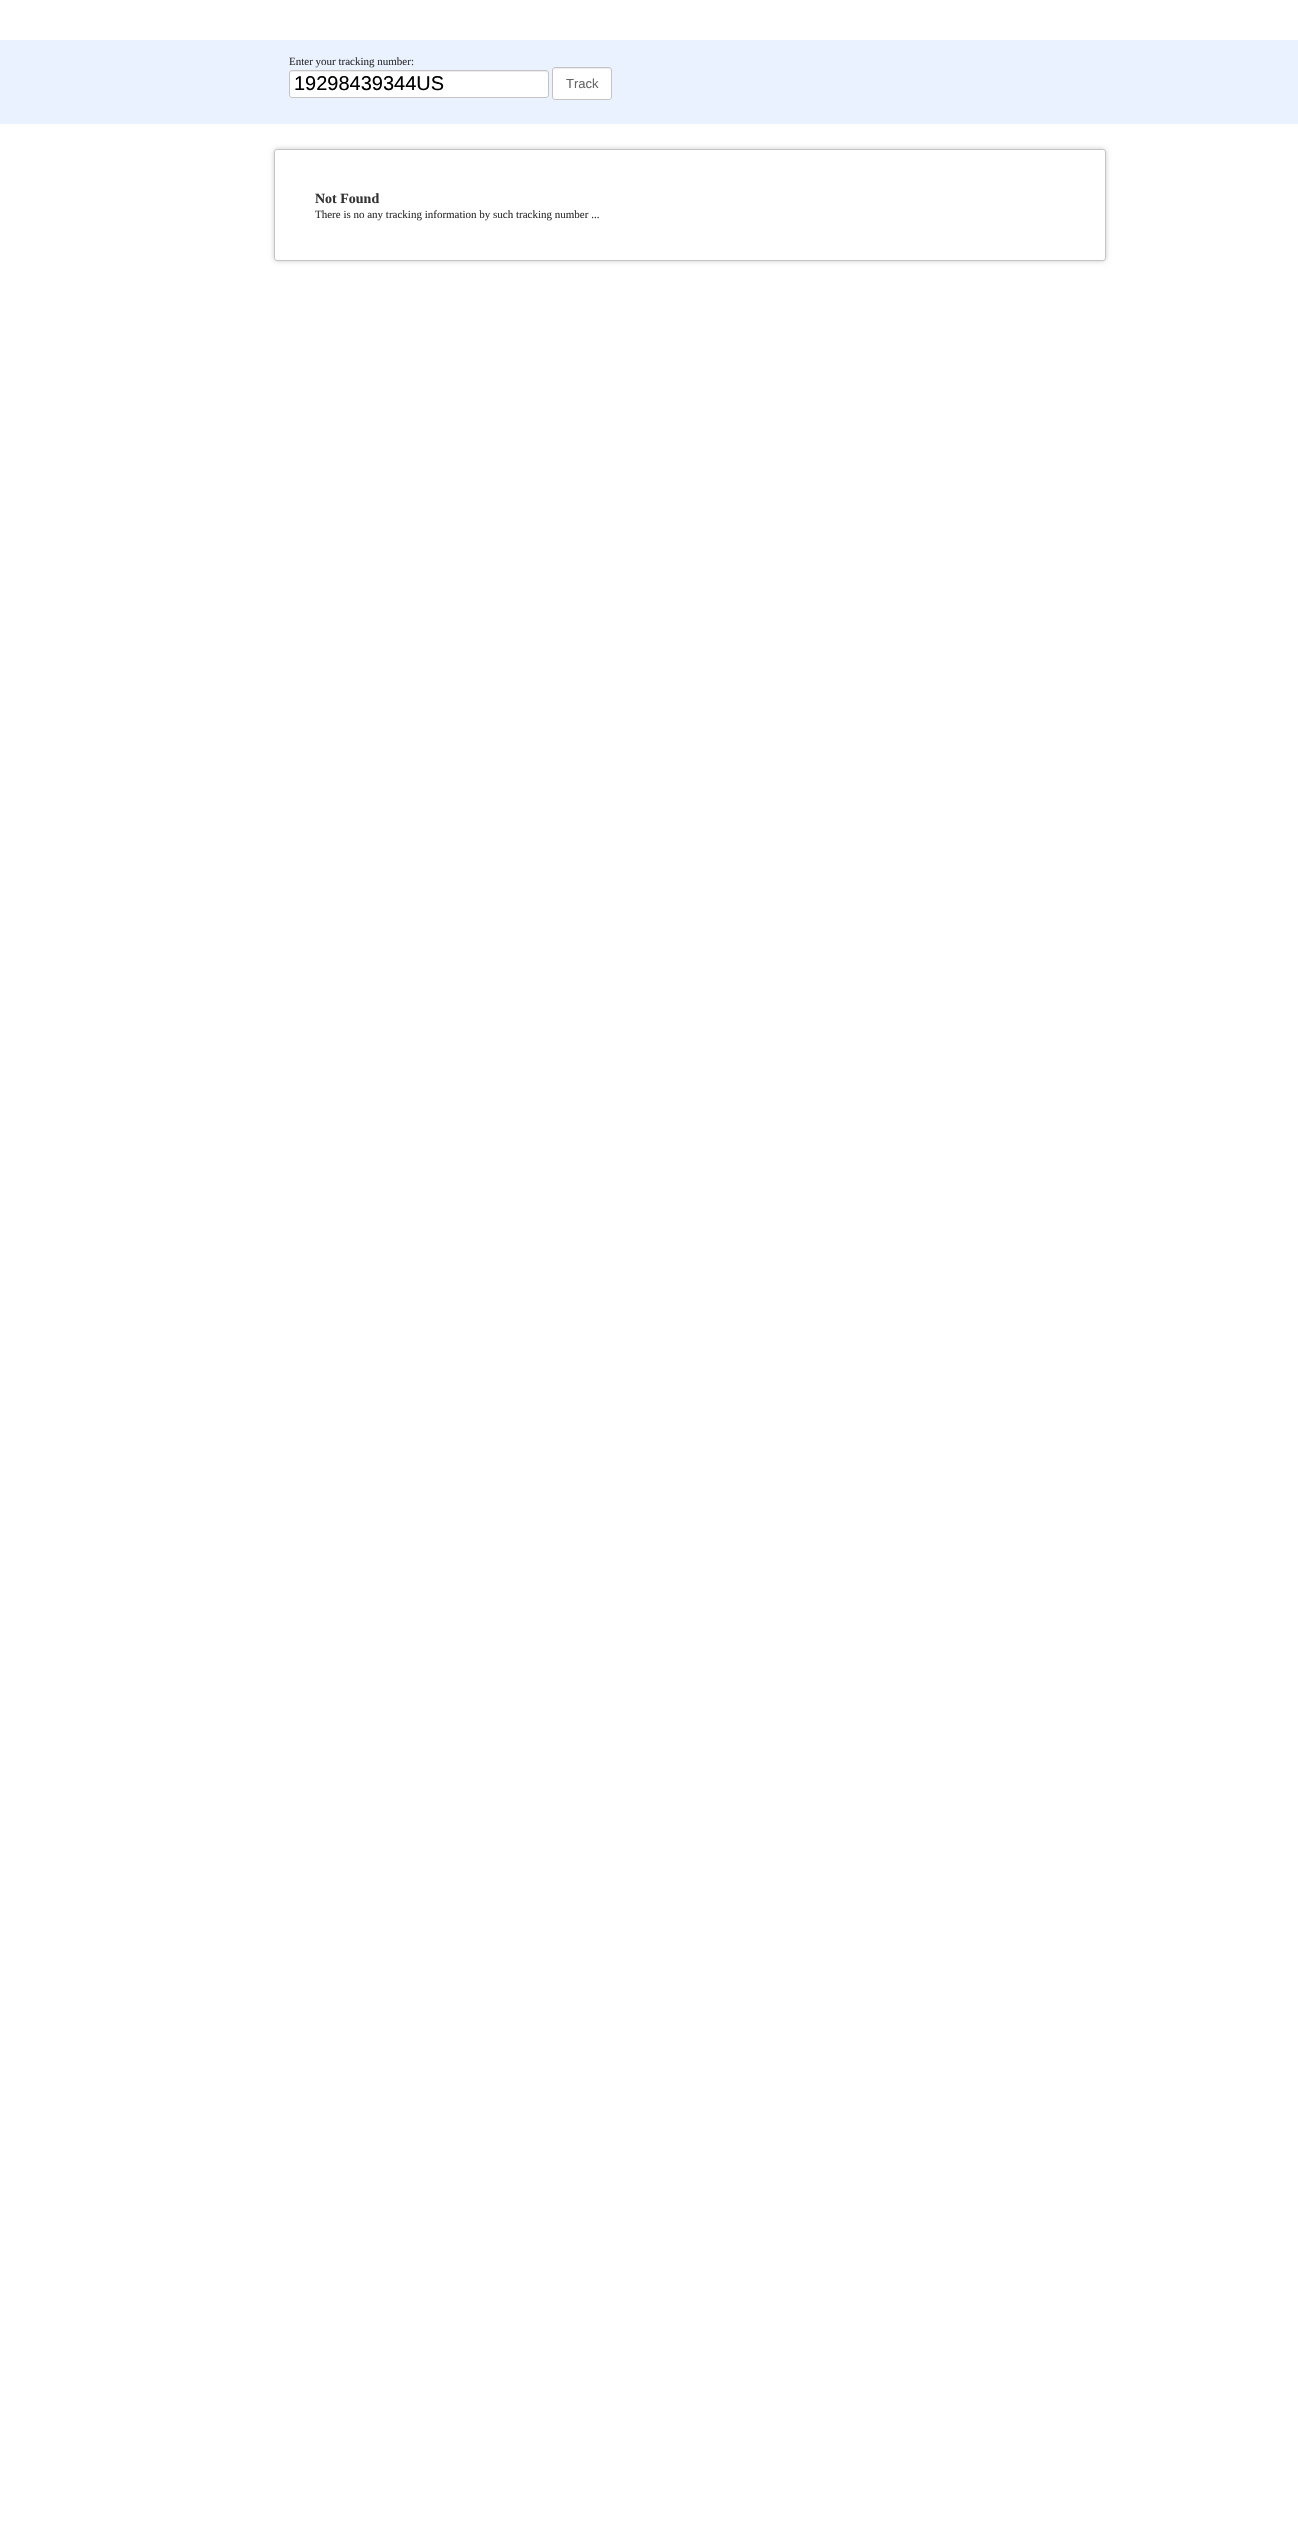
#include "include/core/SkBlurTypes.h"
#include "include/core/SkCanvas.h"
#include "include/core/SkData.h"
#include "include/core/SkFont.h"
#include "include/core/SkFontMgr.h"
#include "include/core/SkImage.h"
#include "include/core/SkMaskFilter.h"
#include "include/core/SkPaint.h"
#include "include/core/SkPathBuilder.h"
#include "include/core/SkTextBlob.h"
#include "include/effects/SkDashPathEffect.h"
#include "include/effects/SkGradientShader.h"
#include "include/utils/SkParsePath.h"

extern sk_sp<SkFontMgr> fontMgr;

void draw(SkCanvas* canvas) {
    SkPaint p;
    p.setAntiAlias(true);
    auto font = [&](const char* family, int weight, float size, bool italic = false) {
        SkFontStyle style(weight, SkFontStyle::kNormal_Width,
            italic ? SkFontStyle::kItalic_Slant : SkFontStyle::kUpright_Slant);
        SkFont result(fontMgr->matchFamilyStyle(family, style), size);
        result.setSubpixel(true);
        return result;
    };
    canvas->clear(0xFFFFFFFF);
    p.setColor(0xFFEAF1FF);
    canvas->drawRect(SkRect::MakeLTRB(0, 40, 1298, 124), p);
    auto font1 = font("Liberation Serif", 400, 11);
    p.setColor(0xFF333333);
    canvas->drawString("Enter your tracking number:", 289, 65, font1, p);
    p.setColor(0xFFFFFFFF);
    canvas->drawRoundRect(SkRect::MakeLTRB(289, 70, 549, 98), 3, 3, p);
    p.setColor(0xFFECECEC);
    canvas->drawPath(SkPathBuilder().moveTo(292, 72).lineTo(546, 72).cubicTo(547, 72, 548, 73, 548, 74).cubicTo(548, 73, 548, 71, 546, 71).lineTo(291, 71).lineTo(290, 74).cubicTo(290, 73, 291, 72, 292, 72).close().detach(), p);
    p.setStyle(SkPaint::kStroke_Style);
    p.setStrokeWidth(1);
    p.setColor(0xFFC4C4C4);
    canvas->drawRoundRect(SkRect::MakeLTRB(289.5f, 70.5f, 548.5f, 97.5f), 2.5f, 2.5f, p);
    auto font2 = font("Liberation Sans", 400, 20);
    p.setStyle(SkPaint::kFill_Style);
    p.setColor(0xFF000000);
    canvas->drawString("19298439344US", 294, 90, font2, p);
    p.setColor(0xFFFFFFFF);
    canvas->drawRoundRect(SkRect::MakeLTRB(552, 67, 612, 100), 3, 3, p);
    p.setColor(0xFFECECEC);
    canvas->drawPath(SkPathBuilder().moveTo(555, 69).lineTo(609, 69).cubicTo(610, 69, 611, 70, 611, 71).cubicTo(611, 66, 604, 68, 600, 68).lineTo(564, 68).cubicTo(560, 68, 553, 66, 553, 71).cubicTo(553, 70, 554, 69, 555, 69).close().detach(), p);
    p.setStyle(SkPaint::kStroke_Style);
    p.setColor(0xFFC4C4C4);
    canvas->drawRoundRect(SkRect::MakeLTRB(552.5f, 67.5f, 611.5f, 99.5f), 2.5f, 2.5f, p);
    auto font3 = font("Liberation Sans", 400, 13);
    p.setStyle(SkPaint::kFill_Style);
    p.setColor(0xFF666666);
    canvas->drawString("Track", 566, 88, font3, p);
    canvas->save();
    canvas->clipPath(SkPathBuilder(SkPathFillType::kEvenOdd).moveTo(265, 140).lineTo(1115, 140).lineTo(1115, 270).lineTo(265, 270).close().moveTo(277, 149).lineTo(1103, 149).cubicTo(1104.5f, 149, 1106, 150.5f, 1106, 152).lineTo(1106, 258).cubicTo(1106, 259.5f, 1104.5f, 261, 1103, 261).lineTo(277, 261).cubicTo(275.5f, 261, 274, 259.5f, 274, 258).lineTo(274, 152).cubicTo(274, 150.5f, 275.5f, 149, 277, 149).close().detach(), true);
    p.setColor(0x33000000);
    p.setMaskFilter(SkMaskFilter::MakeBlur(kNormal_SkBlurStyle, 2.5f));
    canvas->drawRoundRect(SkRect::MakeLTRB(274, 149, 1106, 261), 3, 3, p);
    p.setMaskFilter(nullptr);
    canvas->restore();
    p.setStyle(SkPaint::kStroke_Style);
    p.setColor(0xFFC4C4C4);
    canvas->drawRoundRect(SkRect::MakeLTRB(274.5f, 149.5f, 1105.5f, 260.5f), 2.5f, 2.5f, p);
    auto font4 = font("Liberation Serif", 700, 14);
    p.setStyle(SkPaint::kFill_Style);
    p.setColor(0xFF333333);
    canvas->drawString("Not Found", 315, 203, font4, p);
    canvas->drawString("There is no any tracking information by such tracking number ...", 315, 218, font1, p);
}
